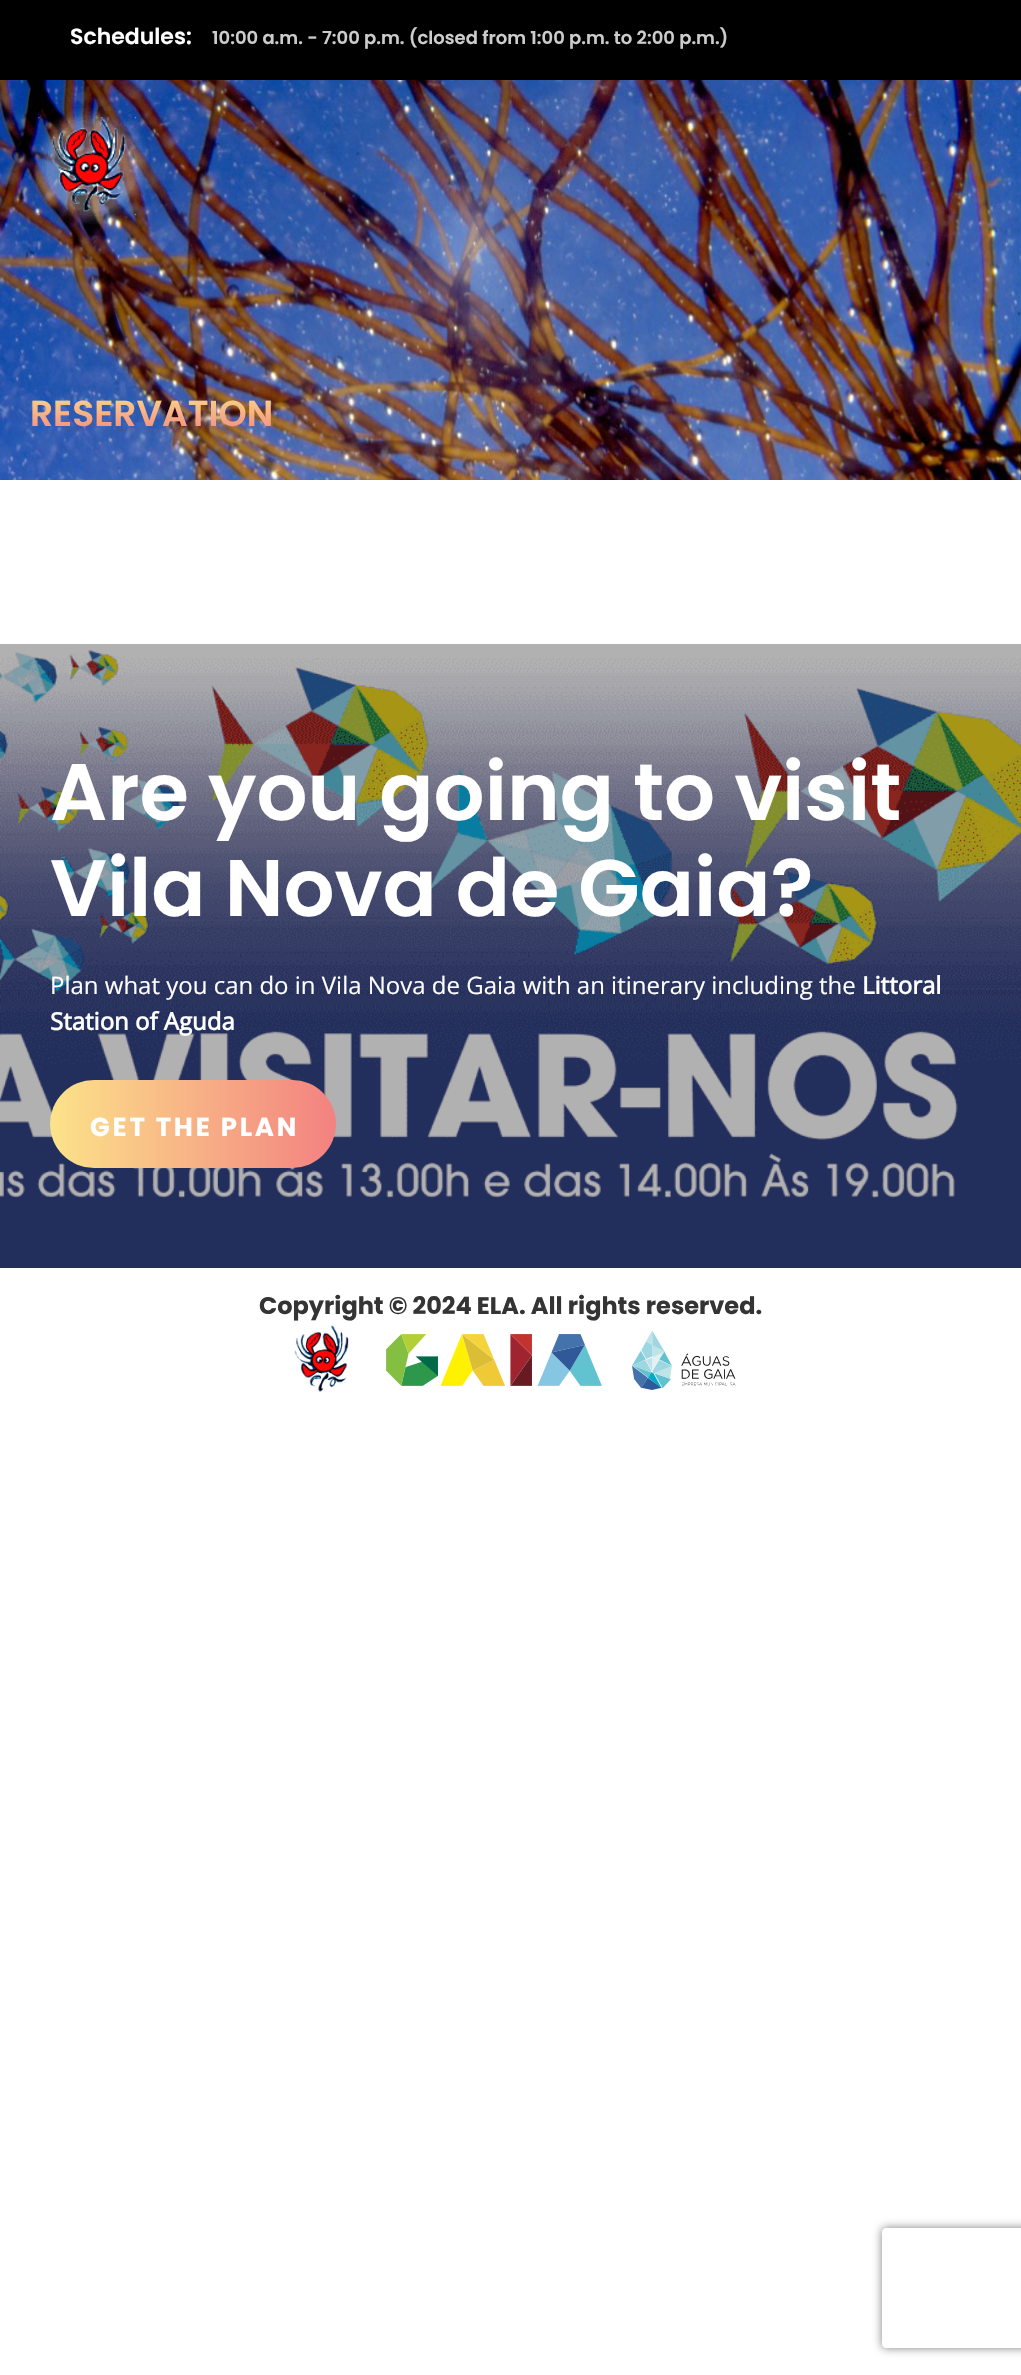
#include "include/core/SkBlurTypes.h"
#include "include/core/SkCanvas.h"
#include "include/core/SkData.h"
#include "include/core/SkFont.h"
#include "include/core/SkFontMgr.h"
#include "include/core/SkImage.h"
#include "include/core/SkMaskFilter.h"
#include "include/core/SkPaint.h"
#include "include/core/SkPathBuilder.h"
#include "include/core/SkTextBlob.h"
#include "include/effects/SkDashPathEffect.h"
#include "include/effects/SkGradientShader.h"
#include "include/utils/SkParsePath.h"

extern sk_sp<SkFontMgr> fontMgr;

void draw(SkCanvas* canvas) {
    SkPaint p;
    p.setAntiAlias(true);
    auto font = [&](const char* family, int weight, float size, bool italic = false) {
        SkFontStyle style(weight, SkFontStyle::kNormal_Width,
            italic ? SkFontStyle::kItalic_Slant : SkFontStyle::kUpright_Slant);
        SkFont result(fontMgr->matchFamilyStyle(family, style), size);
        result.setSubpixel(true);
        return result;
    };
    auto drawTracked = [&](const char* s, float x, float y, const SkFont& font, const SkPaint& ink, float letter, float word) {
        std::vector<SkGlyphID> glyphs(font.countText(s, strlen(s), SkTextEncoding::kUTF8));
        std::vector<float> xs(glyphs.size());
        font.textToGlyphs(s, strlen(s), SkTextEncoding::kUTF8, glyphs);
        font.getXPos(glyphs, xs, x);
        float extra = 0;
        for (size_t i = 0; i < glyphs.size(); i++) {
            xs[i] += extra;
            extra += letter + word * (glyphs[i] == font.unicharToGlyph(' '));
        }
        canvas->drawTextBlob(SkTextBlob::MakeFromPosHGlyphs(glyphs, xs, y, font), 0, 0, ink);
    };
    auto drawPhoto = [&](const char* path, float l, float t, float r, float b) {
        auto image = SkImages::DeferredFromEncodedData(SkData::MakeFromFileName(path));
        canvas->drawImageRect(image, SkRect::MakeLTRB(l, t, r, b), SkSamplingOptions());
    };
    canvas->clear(0xFFFFFFFF);
    p.setColor(0xFF000000);
    canvas->drawRect(SkRect::MakeLTRB(0, 0, 1021, 80), p);
    auto font1 = font("Poppins", 600, 22);
    p.setColor(0xFFFFFFFF);
    canvas->drawString("Schedules:", 70, 44, font1, p);
    auto font2 = font("Poppins", 600, 18);
    p.setColor(0xFFCCCCCC);
    canvas->drawString("10:00 a.m. - 7:00 p.m. (closed from 1:00 p.m. to 2:00 p.m.)", 212, 44, font2, p);
    drawPhoto("media/1.png", 0, 80, 1021, 480);
    drawPhoto("media/2.png", 35, 108, 149, 224);
    auto font3 = font("Poppins", 600, 36);
    {
        const SkColor colors[] = {0xFFFCE38A, 0xFFF38181};
        const float stops[] = {0, 1};
        const SkPoint ends[] = {{152, 388}, {152, 438}};
        p.setShader(SkGradientShader::MakeLinear(ends, colors, stops, 2, SkTileMode::kClamp));
        p.setAlpha(255);
    }
    canvas->drawString("RESERVATION", 30, 426, font3, p);
    drawPhoto("media/3.png", 0, 644, 1021, 1268);
    auto font4 = font("Poppins", 600, 80);
    p.setShader(nullptr);
    p.setColor(0xFFFFFFFF);
    canvas->drawString("Are you going to visit", 50, 820, font4, p);
    canvas->drawString("Vila Nova de Gaia?", 50, 916, font4, p);
    auto font5 = font("Open Sans", 400, 24);
    canvas->drawString("Plan what you can do in Vila Nova de Gaia with an itinerary including the", 50, 994, font5, p);
    auto font6 = font("Open Sans", 700, 24);
    canvas->drawString("Littoral", 862, 994, font6, p);
    canvas->drawString("Station of Aguda", 50, 1030, font6, p);
    {
        const SkColor colors[] = {0xFFFCE38A, 0xFFF38181};
        const float stops[] = {0, 1};
        const SkPoint ends[] = {{50, 1124}, {336, 1124}};
        p.setShader(SkGradientShader::MakeLinear(ends, colors, stops, 2, SkTileMode::kClamp));
        p.setAlpha(255);
    }
    canvas->drawRoundRect(SkRect::MakeLTRB(50, 1080, 336, 1168), 44, 44, p);
    auto font7 = font("Poppins", 700, 26);
    p.setShader(nullptr);
    p.setColor(0xFFFFFFFF);
    drawTracked("GET THE PLAN", 90, 1136, font7, p, 2.75f, 0);
    auto font8 = font("Poppins", 700, 24);
    p.setColor(0xFF343434);
    canvas->drawString("Copyright © 2024 ELA. All rights reserved.", 259, 1314, font8, p);
    drawPhoto("media/4.png", 294, 1325, 349, 1392);
    drawPhoto("media/5.png", 386, 1334, 602, 1386);
    drawPhoto("media/6.png", 632, 1330, 736, 1390);
    canvas->save();
    canvas->clipPath(SkPathBuilder(SkPathFillType::kEvenOdd).moveTo(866, 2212).lineTo(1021, 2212).lineTo(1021, 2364).lineTo(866, 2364).close().moveTo(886, 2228).lineTo(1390, 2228).cubicTo(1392, 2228, 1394, 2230, 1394, 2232).lineTo(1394, 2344).cubicTo(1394, 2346, 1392, 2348, 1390, 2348).lineTo(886, 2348).cubicTo(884, 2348, 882, 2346, 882, 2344).lineTo(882, 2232).cubicTo(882, 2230, 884, 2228, 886, 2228).close().detach(), true);
    p.setColor(0xFF808080);
    p.setMaskFilter(SkMaskFilter::MakeBlur(kNormal_SkBlurStyle, 5));
    canvas->drawRoundRect(SkRect::MakeLTRB(882, 2228, 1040, 2348), 4, 4, p);
    p.setMaskFilter(nullptr);
    canvas->restore();
}
